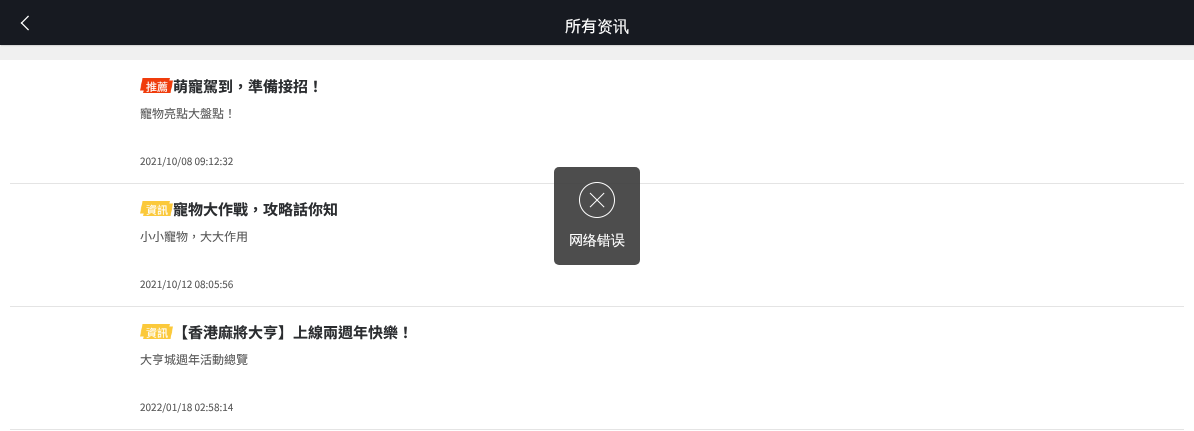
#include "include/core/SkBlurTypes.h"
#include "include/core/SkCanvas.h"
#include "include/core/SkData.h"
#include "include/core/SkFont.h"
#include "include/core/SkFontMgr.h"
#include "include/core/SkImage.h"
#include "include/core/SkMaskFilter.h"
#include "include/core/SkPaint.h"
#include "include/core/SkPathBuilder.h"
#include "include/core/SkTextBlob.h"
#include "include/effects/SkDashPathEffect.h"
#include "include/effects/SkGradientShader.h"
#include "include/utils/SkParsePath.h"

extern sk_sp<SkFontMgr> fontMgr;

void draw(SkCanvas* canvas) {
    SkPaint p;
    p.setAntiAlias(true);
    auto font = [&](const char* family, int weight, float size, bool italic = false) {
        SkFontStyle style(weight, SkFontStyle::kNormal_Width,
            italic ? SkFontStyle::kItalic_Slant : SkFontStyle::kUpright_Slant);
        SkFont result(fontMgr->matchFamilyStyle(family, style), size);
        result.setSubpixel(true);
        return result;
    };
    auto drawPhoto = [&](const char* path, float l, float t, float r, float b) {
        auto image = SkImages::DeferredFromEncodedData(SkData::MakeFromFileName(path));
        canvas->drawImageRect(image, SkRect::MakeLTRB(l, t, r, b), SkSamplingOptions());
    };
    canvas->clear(0xFFF0F0F0);
    p.setColor(0x1A000000);
    p.setMaskFilter(SkMaskFilter::MakeBlur(kNormal_SkBlurStyle, 0.5f));
    canvas->drawRect(SkRect::MakeLTRB(1, 1, 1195, 46), p);
    p.setMaskFilter(nullptr);
    p.setColor(0xFF171A21);
    canvas->drawRect(SkRect::MakeLTRB(0, 0, 1194, 45), p);
    drawPhoto("media/1.png", 20, 15, 29, 31);
    auto font1 = font("Noto Sans TC", 400, 16);
    p.setColor(0xFFFFFFFF);
    canvas->drawString("所有", 565, 32, font1, p);
    auto font2 = font("WenQuanYi Zen Hei", 500, 16);
    canvas->drawString("资讯", 597, 32, font2, p);
    canvas->drawRect(SkRect::MakeLTRB(0, 60, 1194, 431), p);
    p.setColor(0xFFE4E4E4);
    canvas->drawRect(SkRect::MakeLTRB(10, 183, 1184, 184), p);
    drawPhoto("media/2.png", 140, 78, 173, 93);
    auto font3 = font("Noto Sans TC", 400, 11);
    p.setColor(0xFFFFFFFF);
    canvas->drawString("推薦", 146, 91, font3, p);
    auto font4 = font("Noto Sans TC", 700, 15);
    p.setColor(0xFF2B2D30);
    canvas->drawString("萌寵駕到，準備接招！", 173, 92, font4, p);
    auto font5 = font("Noto Sans TC", 400, 12);
    p.setColor(0xFF595959);
    canvas->drawString("寵物亮點大盤點！", 140, 118, font5, p);
    auto font6 = font("Noto Sans TC", 400, 10);
    canvas->drawString("2021/10/08 09:12:32", 140, 165, font6, p);
    p.setColor(0xFFE4E4E4);
    canvas->drawRect(SkRect::MakeLTRB(10, 306, 1184, 307), p);
    drawPhoto("media/3.png", 140, 201, 173, 216);
    p.setColor(0xFFFFFFFF);
    canvas->drawString("資訊", 146, 214, font3, p);
    p.setColor(0xFF2B2D30);
    canvas->drawString("寵物大作戰，攻略話你知", 173, 215, font4, p);
    p.setColor(0xFF595959);
    canvas->drawString("小小寵物，大大作用", 140, 241, font5, p);
    canvas->drawString("2021/10/12 08:05:56", 140, 288, font6, p);
    p.setColor(0xFFE4E4E4);
    canvas->drawRect(SkRect::MakeLTRB(10, 429, 1184, 430), p);
    drawPhoto("media/3.png", 140, 324, 173, 339);
    p.setColor(0xFFFFFFFF);
    canvas->drawString("資訊", 146, 337, font3, p);
    p.setColor(0xFF2B2D30);
    canvas->drawString("【香港麻將大亨】上線兩週年快樂！", 173, 338, font4, p);
    p.setColor(0xFF595959);
    canvas->drawString("大亨城週年活動總覽", 140, 364, font5, p);
    canvas->drawString("2022/01/18 02:58:14", 140, 411, font6, p);
    p.setColor(0xE63A3A3A);
    canvas->drawRoundRect(SkRect::MakeLTRB(554, 167, 640, 265), 5, 5, p);
    drawPhoto("media/4.png", 579, 182, 615, 218);
    auto font7 = font("Noto Sans TC", 400, 14);
    p.setColor(0xFFFFFFFF);
    canvas->drawString("网", 569, 245, font7, p);
    auto font8 = font("WenQuanYi Zen Hei", 500, 14);
    canvas->drawString("络错误", 583, 245, font8, p);
}
